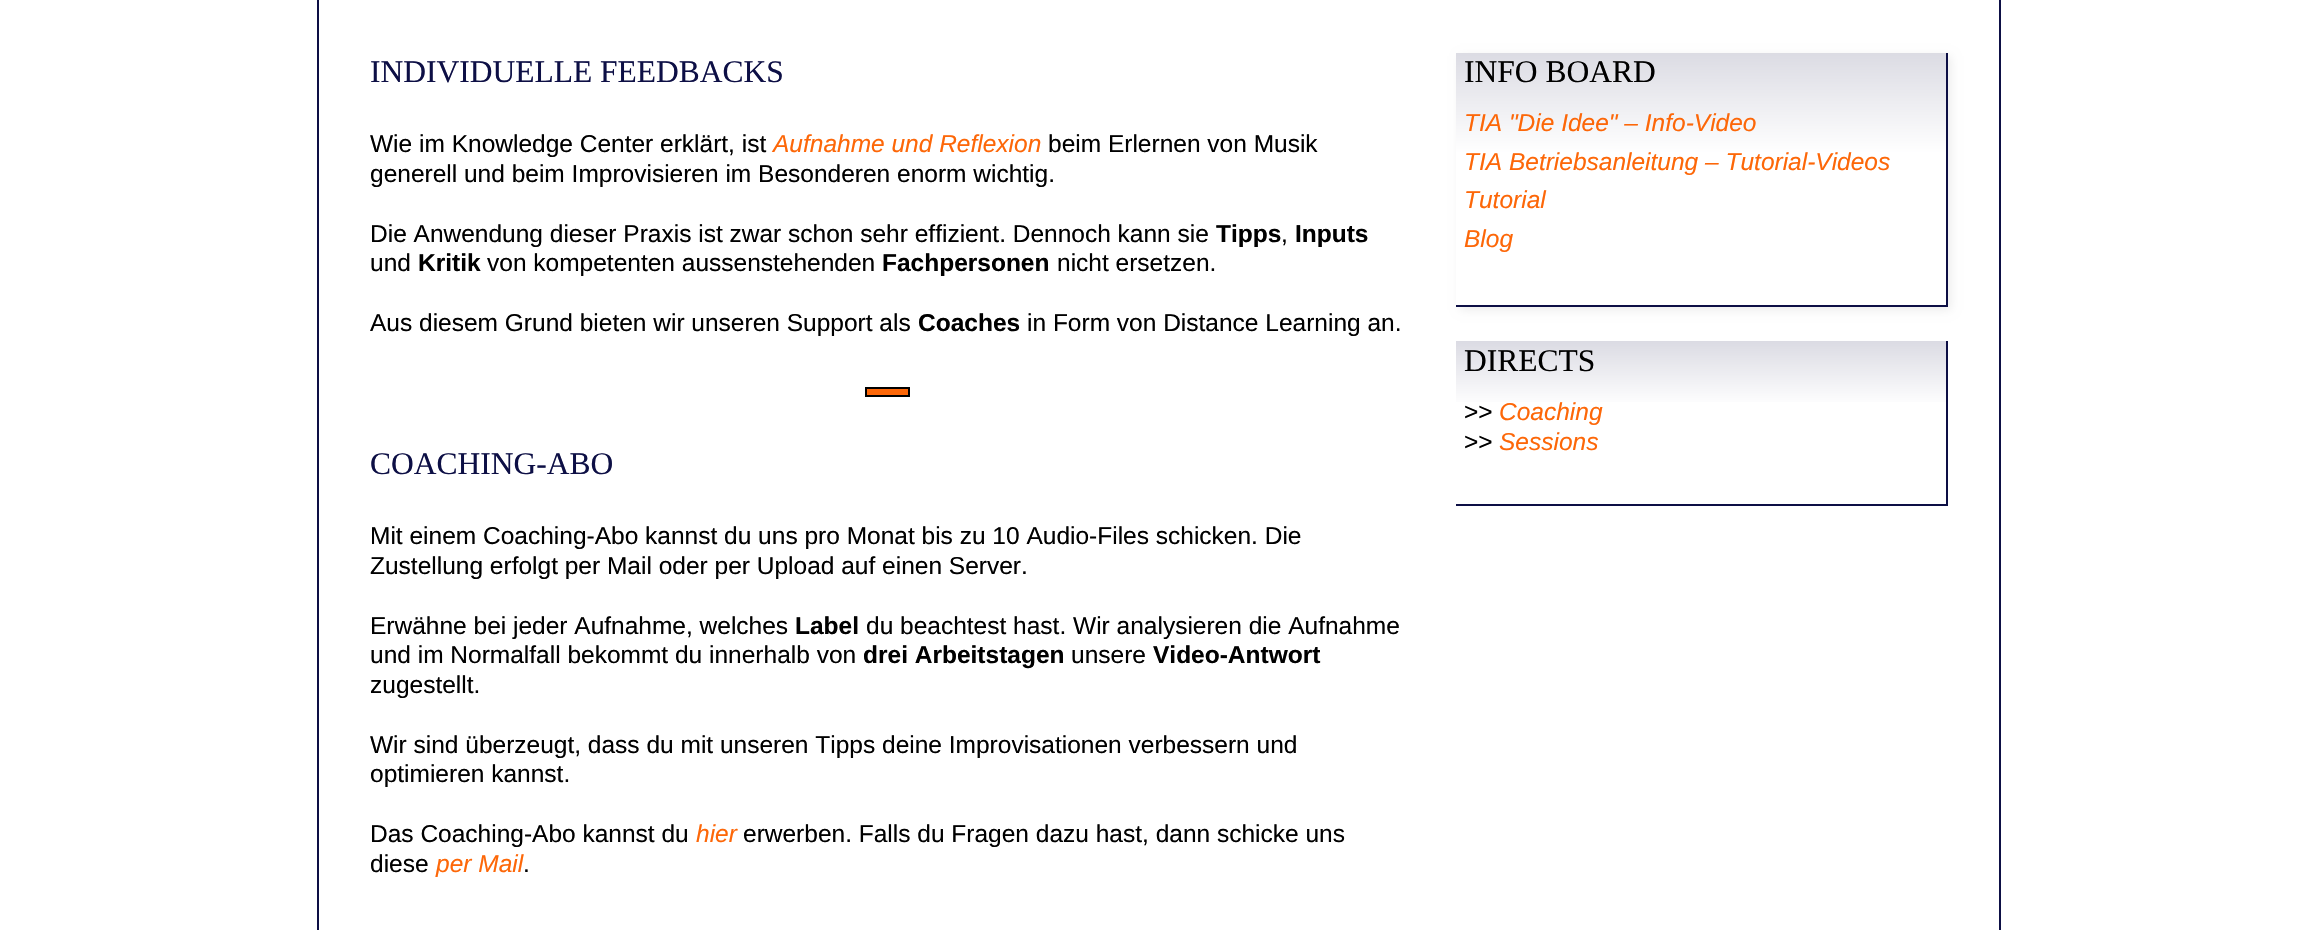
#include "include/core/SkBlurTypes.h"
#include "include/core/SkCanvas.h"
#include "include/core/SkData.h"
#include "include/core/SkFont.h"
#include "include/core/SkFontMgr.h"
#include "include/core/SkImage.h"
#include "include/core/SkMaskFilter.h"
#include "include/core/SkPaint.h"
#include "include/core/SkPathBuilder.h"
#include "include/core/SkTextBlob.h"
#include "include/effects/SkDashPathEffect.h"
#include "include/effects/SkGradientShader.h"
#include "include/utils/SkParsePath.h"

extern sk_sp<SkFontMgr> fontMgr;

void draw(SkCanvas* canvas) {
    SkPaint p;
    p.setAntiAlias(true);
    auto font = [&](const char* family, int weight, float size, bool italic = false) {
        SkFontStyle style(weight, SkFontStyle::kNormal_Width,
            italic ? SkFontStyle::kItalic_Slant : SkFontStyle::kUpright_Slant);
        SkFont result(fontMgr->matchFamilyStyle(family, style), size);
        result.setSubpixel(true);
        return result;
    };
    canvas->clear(0xFFFFFFFF);
    p.setColor(0xFF0D0F45);
    canvas->drawRect(SkRect::MakeLTRB(1999, 0, 2001, 930), p);
    canvas->drawRect(SkRect::MakeLTRB(317, 0, 319, 930), p);
    auto font1 = font("Liberation Serif", 400, 31.5f);
    canvas->drawString("INDIVIDUELLE FEEDBACKS", 370, 82, font1, p);
    auto font2 = font("Liberation Sans", 400, 24.5f);
    p.setColor(0xFF000000);
    canvas->drawString("Wie im Knowledge Center erklärt, ist", 370, 152, font2, p);
    auto font3 = font("Liberation Sans", 400, 24.5f, true);
    p.setColor(0xFFFD6708);
    canvas->drawString("Aufnahme und Reflexion", 773, 152, font3, p);
    p.setColor(0xFF000000);
    {
        const struct { const char* s; float x, y; } items[] = {
            {"beim Erlernen von Musik", 1048, 152},
            {"generell und beim Improvisieren im Besonderen enorm wichtig.", 370, 182},
            {"Die Anwendung dieser Praxis ist zwar schon sehr effizient. Dennoch kann sie", 370, 242},
        };
        for (auto [s, x, y] : items) {
            canvas->drawString(s, x, y, font2, p);
        }
    }
    auto font4 = font("Liberation Sans", 700, 24.5f);
    canvas->drawString("Tipps", 1216, 242, font4, p);
    canvas->drawString(",", 1281, 242, font2, p);
    canvas->drawString("Inputs", 1295, 242, font4, p);
    canvas->drawString("und", 370, 271, font2, p);
    canvas->drawString("Kritik", 418, 271, font4, p);
    canvas->drawString("von kompetenten aussenstehenden", 487, 271, font2, p);
    canvas->drawString("Fachpersonen", 882, 271, font4, p);
    canvas->drawString("nicht ersetzen.", 1057, 271, font2, p);
    canvas->drawString("Aus diesem Grund bieten wir unseren Support als", 370, 331, font2, p);
    canvas->drawString("Coaches", 918, 331, font4, p);
    canvas->drawString("in Form von Distance Learning an.", 1027, 331, font2, p);
    p.setColor(0xFFFD6708);
    canvas->drawRect(SkRect::MakeLTRB(866, 388, 909, 396), p);
    p.setStyle(SkPaint::kStroke_Style);
    p.setStrokeWidth(2);
    p.setColor(0xFF000000);
    canvas->drawRect(SkRect::MakeLTRB(866, 388, 909, 396), p);
    p.setStyle(SkPaint::kFill_Style);
    p.setColor(0xFF0D0F45);
    canvas->drawString("COACHING-ABO", 370, 474, font1, p);
    p.setColor(0xFF000000);
    {
        const struct { const char* s; float x, y; } items[] = {
            {"Mit einem Coaching-Abo kannst du uns pro Monat bis zu 10 Audio-Files schicken. Die", 370, 544},
            {"Zustellung erfolgt per Mail oder per Upload auf einen Server.", 370, 574},
            {"Erwähne bei jeder Aufnahme, welches", 370, 634},
        };
        for (auto [s, x, y] : items) {
            canvas->drawString(s, x, y, font2, p);
        }
    }
    canvas->drawString("Label", 795, 634, font4, p);
    canvas->drawString("du beachtest hast. Wir analysieren die Aufnahme", 866, 634, font2, p);
    canvas->drawString("und im Normalfall bekommt du innerhalb von", 370, 663, font2, p);
    canvas->drawString("drei Arbeitstagen", 863, 663, font4, p);
    canvas->drawString("unsere", 1071, 663, font2, p);
    canvas->drawString("Video-Antwort", 1153, 663, font4, p);
    {
        const struct { const char* s; float x, y; } items[] = {
            {"zugestellt.", 370, 693},
            {"Wir sind überzeugt, dass du mit unseren Tipps deine Improvisationen verbessern und", 370, 753},
            {"optimieren kannst.", 370, 782},
            {"Das Coaching-Abo kannst du", 370, 842},
        };
        for (auto [s, x, y] : items) {
            canvas->drawString(s, x, y, font2, p);
        }
    }
    p.setColor(0xFFFD6708);
    canvas->drawString("hier", 696, 842, font3, p);
    p.setColor(0xFF000000);
    canvas->drawString("erwerben. Falls du Fragen dazu hast, dann schicke uns", 743, 842, font2, p);
    canvas->drawString("diese", 370, 872, font2, p);
    p.setColor(0xFFFD6708);
    canvas->drawString("per Mail", 436, 872, font3, p);
    p.setColor(0xFF000000);
    canvas->drawString(".", 523, 872, font2, p);
    p.setColor(0x12000000);
    p.setMaskFilter(SkMaskFilter::MakeBlur(kNormal_SkBlurStyle, 4.5f));
    canvas->drawRect(SkRect::MakeLTRB(1460, 56, 1951, 310), p);
    p.setMaskFilter(nullptr);
    {
        const SkColor colors[] = {0xFFDBDBE3, 0xFFFFFFFF};
        const float stops[] = {0, 0.4f};
        const SkPoint ends[] = {{1701, 52}, {1701, 305}};
        p.setShader(SkGradientShader::MakeLinear(ends, colors, stops, 2, SkTileMode::kClamp));
        p.setAlpha(255);
    }
    canvas->drawRect(SkRect::MakeLTRB(1456, 53, 1946, 305), p);
    p.setShader(nullptr);
    p.setColor(0xFF0D0F45);
    canvas->drawRect(SkRect::MakeLTRB(1946, 53, 1948, 306), p);
    canvas->drawRect(SkRect::MakeLTRB(1456, 305, 1948, 307), p);
    p.setColor(0xFF000000);
    canvas->drawString("INFO BOARD", 1464, 82, font1, p);
    p.setColor(0xFFFD6708);
    {
        const struct { const char* s; float x, y; } items[] = {
            {"TIA \"Die Idee\" – Info-Video", 1464, 131},
            {"TIA Betriebsanleitung – Tutorial-Videos", 1464, 170},
            {"Tutorial", 1464, 208},
            {"Blog", 1464, 247},
        };
        for (auto [s, x, y] : items) {
            canvas->drawString(s, x, y, font3, p);
        }
    }
    {
        const SkColor colors[] = {0xFFDBDBE3, 0xFFFFFFFF};
        const float stops[] = {0, 0.4f};
        const SkPoint ends[] = {{1701, 341}, {1701, 504}};
        p.setShader(SkGradientShader::MakeLinear(ends, colors, stops, 2, SkTileMode::kClamp));
        p.setAlpha(255);
    }
    canvas->drawRect(SkRect::MakeLTRB(1456, 341, 1946, 402), p);
    p.setShader(nullptr);
    p.setColor(0xFF0D0F45);
    canvas->drawRect(SkRect::MakeLTRB(1946, 341, 1948, 506), p);
    canvas->drawRect(SkRect::MakeLTRB(1456, 504, 1948, 506), p);
    p.setColor(0xFF000000);
    canvas->drawString("DIRECTS", 1464, 371, font1, p);
    canvas->drawString(">>", 1464, 420, font2, p);
    p.setColor(0xFFFD6708);
    canvas->drawString("Coaching", 1499, 420, font3, p);
    p.setColor(0xFF000000);
    canvas->drawString(">>", 1464, 450, font2, p);
    p.setColor(0xFFFD6708);
    canvas->drawString("Sessions", 1499, 450, font3, p);
}
